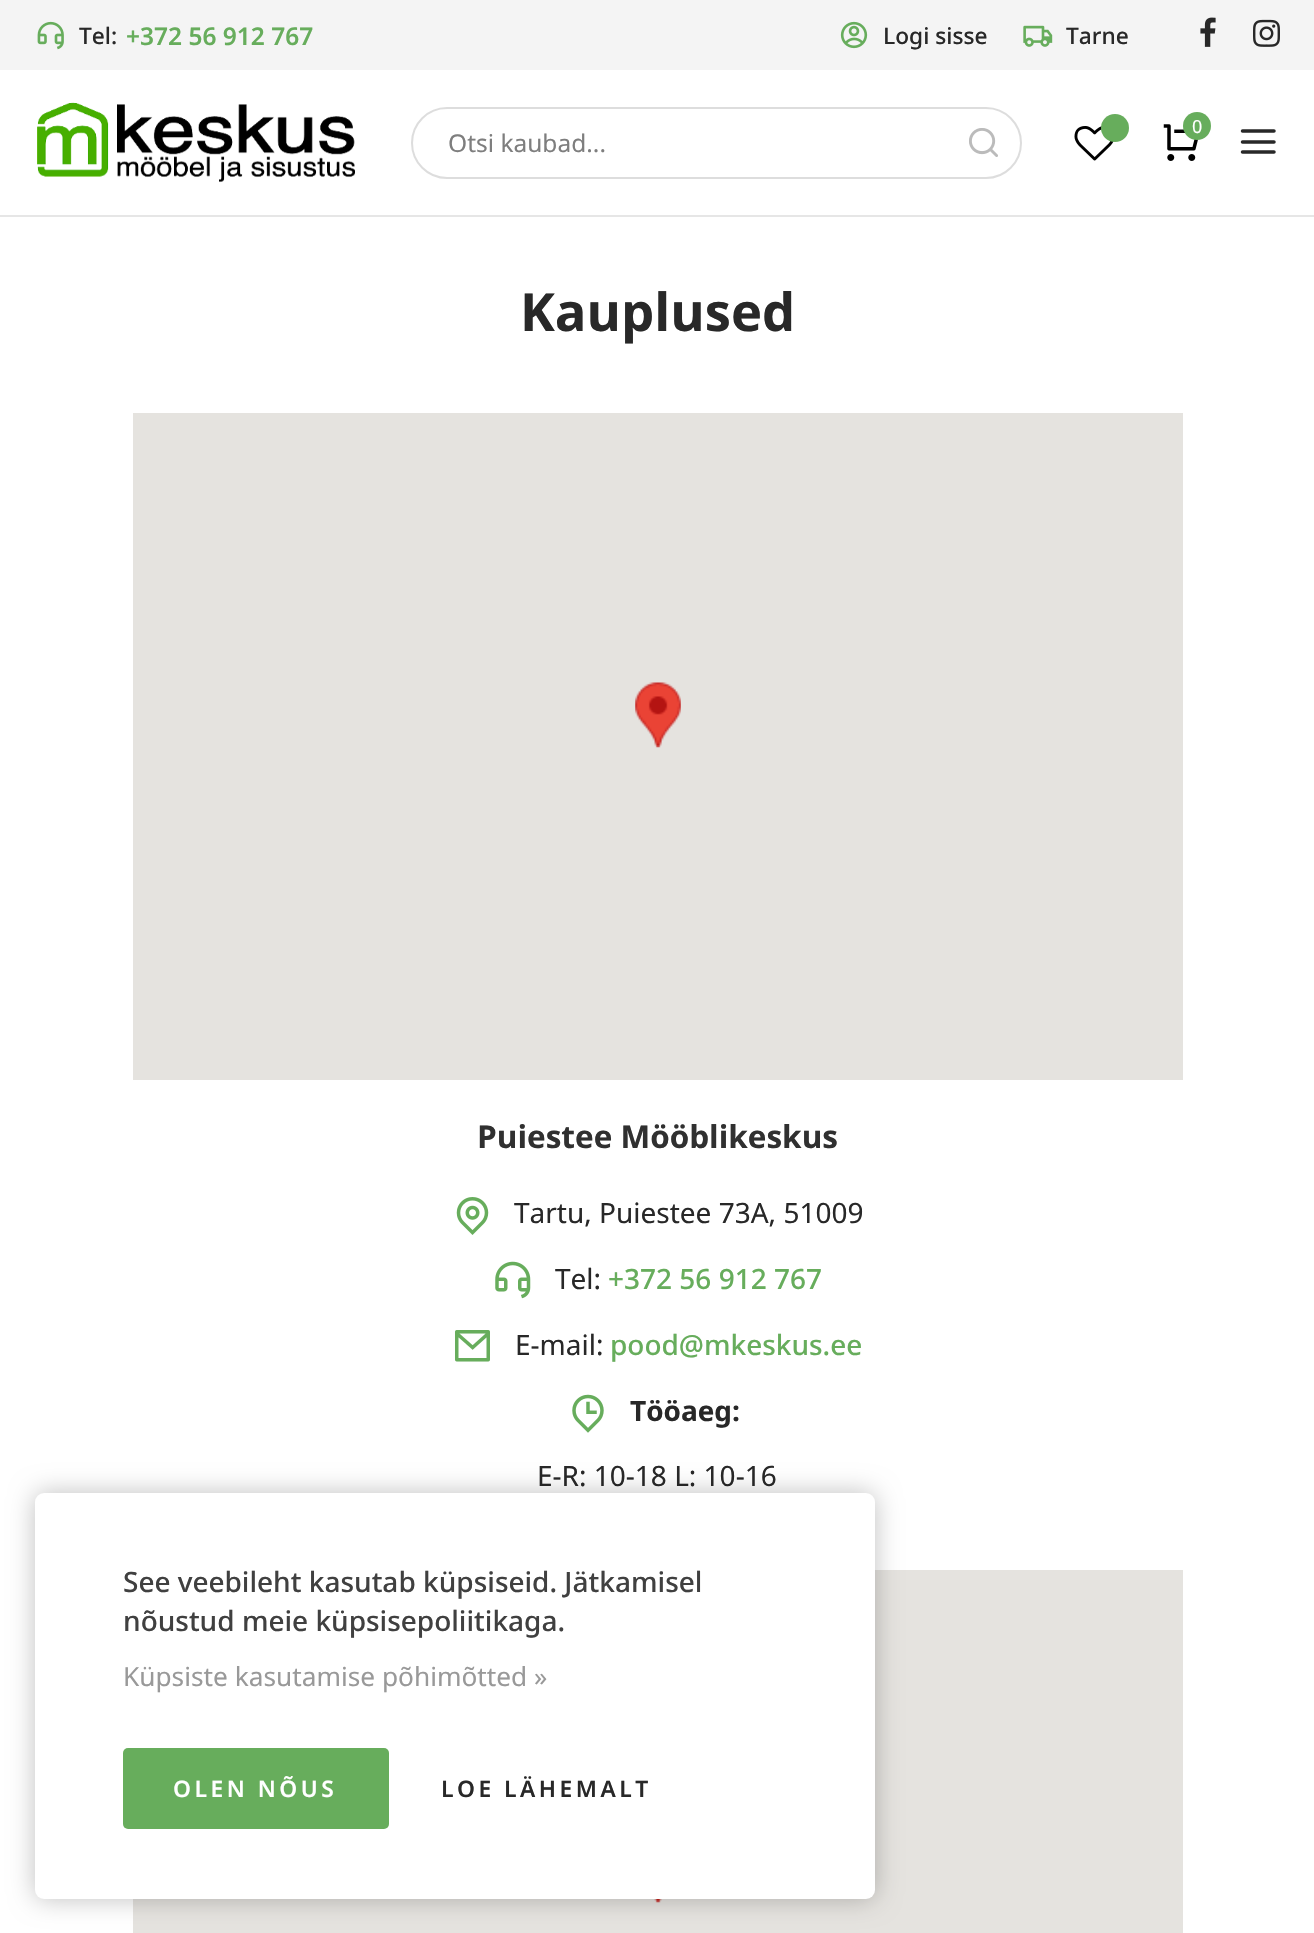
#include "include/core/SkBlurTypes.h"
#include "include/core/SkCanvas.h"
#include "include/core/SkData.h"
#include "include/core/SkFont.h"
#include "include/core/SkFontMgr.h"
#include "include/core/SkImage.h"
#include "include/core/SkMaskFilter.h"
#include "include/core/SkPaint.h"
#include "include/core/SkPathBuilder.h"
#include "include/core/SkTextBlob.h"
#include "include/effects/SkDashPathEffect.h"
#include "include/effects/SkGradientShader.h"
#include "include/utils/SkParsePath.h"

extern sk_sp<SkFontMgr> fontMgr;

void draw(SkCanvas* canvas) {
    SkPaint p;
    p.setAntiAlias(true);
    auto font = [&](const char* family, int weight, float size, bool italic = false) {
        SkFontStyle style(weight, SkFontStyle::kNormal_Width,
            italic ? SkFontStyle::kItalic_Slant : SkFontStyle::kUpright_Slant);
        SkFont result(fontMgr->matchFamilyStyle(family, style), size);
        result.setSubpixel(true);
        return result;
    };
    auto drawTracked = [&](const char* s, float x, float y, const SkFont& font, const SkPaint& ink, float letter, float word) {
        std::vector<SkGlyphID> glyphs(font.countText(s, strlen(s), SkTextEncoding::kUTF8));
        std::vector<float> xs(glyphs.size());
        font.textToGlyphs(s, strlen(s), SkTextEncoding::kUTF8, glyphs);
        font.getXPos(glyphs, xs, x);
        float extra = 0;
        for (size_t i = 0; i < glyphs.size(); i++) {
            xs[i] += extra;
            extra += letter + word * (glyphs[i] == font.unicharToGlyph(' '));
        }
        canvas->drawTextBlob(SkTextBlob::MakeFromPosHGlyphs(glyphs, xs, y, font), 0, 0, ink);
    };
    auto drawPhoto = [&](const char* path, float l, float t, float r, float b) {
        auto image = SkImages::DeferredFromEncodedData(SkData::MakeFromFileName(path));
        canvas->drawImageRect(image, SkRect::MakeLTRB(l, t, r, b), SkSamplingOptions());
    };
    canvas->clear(0xFFFFFFFF);
    p.setColor(0xFFE6E6E6);
    canvas->drawRect(SkRect::MakeLTRB(0, 215, 1314, 217), p);
    p.setColor(0xFFF4F4F4);
    canvas->drawRect(SkRect::MakeLTRB(0, 0, 1314, 70), p);
    drawPhoto("media/1.png", 37, 21, 64, 50);
    auto font1 = font("Noto Sans", 500, 22.75f);
    p.setColor(0xFF282828);
    canvas->drawString("Tel:", 79, 44, font1, p);
    auto font2 = font("Noto Sans", 600, 24.5f);
    p.setColor(0xFF67AD5C);
    canvas->drawString("+372 56 912 767", 126, 45, font2, p);
    drawPhoto("media/2.png", 840, 21, 868, 49);
    p.setColor(0xFF282828);
    canvas->drawString("Logi sisse", 883, 44, font1, p);
    drawPhoto("media/3.png", 1023, 25, 1053, 47);
    canvas->drawString("Tarne", 1066, 44, font1, p);
    drawPhoto("media/4.png", 1200, 17, 1216, 47);
    drawPhoto("media/5.png", 1253, 19, 1280, 47);
    drawPhoto("media/6.png", 37, 102, 355, 183);
    drawPhoto("media/7.png", 1074, 126, 1114, 161);
    p.setColor(0xFF67AD5C);
    canvas->drawCircle(1115, 128, 14, p);
    drawPhoto("media/8.png", 1163, 124, 1199, 161);
    canvas->drawCircle(1197, 126, 14, p);
    auto font3 = font("Noto Sans", 400, 18);
    p.setColor(0xFFFFFFFF);
    canvas->drawString("0", 1192, 133, font3, p);
    p.setStyle(SkPaint::kStroke_Style);
    p.setStrokeWidth(2);
    p.setColor(0xFFDDDDDD);
    canvas->drawRoundRect(SkRect::MakeLTRB(412, 108, 1021, 178), 35, 35, p);
    auto font4 = font("Noto Sans", 400, 24.5f);
    p.setStyle(SkPaint::kFill_Style);
    p.setColor(0xFF7E7E7E);
    canvas->drawString("Otsi kaubad...", 448, 152, font4, p);
    drawPhoto("media/9.png", 969, 128, 998, 157);
    p.setStyle(SkPaint::kStroke_Style);
    p.setStrokeWidth(3.5f);
    p.setStrokeCap(SkPaint::kRound_Cap);
    p.setStrokeJoin(SkPaint::kRound_Join);
    p.setColor(0xFF282828);
    canvas->drawPath(SkPathBuilder().moveTo(1242.5f, 142).lineTo(1274, 142).moveTo(1242.5f, 131).lineTo(1274, 131).moveTo(1242.5f, 152).lineTo(1274, 152).detach(), p);
    auto font5 = font("Noto Sans", 700, 52.5f);
    p.setStyle(SkPaint::kFill_Style);
    canvas->drawString("Kauplused", 520, 331, font5, p);
    p.setColor(0xFFE5E3DF);
    canvas->drawRect(SkRect::MakeLTRB(133, 413, 1183, 1080), p);
    drawPhoto("media/10.png", 635, 682, 681, 748);
    auto font6 = font("Noto Sans", 700, 31.5f);
    p.setColor(0xFF303030);
    canvas->drawString("Puiestee Mööblikeskus", 477, 1148, font6, p);
    drawPhoto("media/11.png", 456, 1197, 489, 1235);
    auto font7 = font("Noto Sans", 400, 28);
    p.setColor(0xFF282828);
    canvas->drawString("Tartu, Puiestee 73A, 51009", 514, 1223, font7, p);
    drawPhoto("media/12.png", 495, 1261, 531, 1299);
    canvas->drawString("Tel:", 555, 1289, font7, p);
    auto font8 = font("Noto Sans", 500, 28);
    p.setColor(0xFF67AD5C);
    canvas->drawString("+372 56 912 767", 608, 1289, font8, p);
    drawPhoto("media/13.png", 455, 1330, 490, 1362);
    p.setColor(0xFF282828);
    canvas->drawString("E-mail:", 515, 1355, font7, p);
    p.setColor(0xFF67AD5C);
    canvas->drawString("pood@mkeskus.ee", 610, 1355, font8, p);
    drawPhoto("media/14.png", 572, 1394, 604, 1433);
    auto font9 = font("Noto Sans", 700, 28);
    p.setColor(0xFF282828);
    canvas->drawString("Tööaeg:", 630, 1421, font9, p);
    canvas->drawString("E-R: 10-18 L: 10-16", 537, 1486, font7, p);
    p.setColor(0xFFE5E3DF);
    canvas->drawRect(SkRect::MakeLTRB(133, 1570, 1183, 1933), p);
    drawPhoto("media/15.png", 654, 1899, 662, 1903);
    p.setColor(0x40000000);
    p.setMaskFilter(SkMaskFilter::MakeBlur(kNormal_SkBlurStyle, 13));
    canvas->drawRoundRect(SkRect::MakeLTRB(35, 1493, 875, 1899), 9, 9, p);
    p.setMaskFilter(nullptr);
    p.setColor(0xFFFFFFFF);
    canvas->drawRoundRect(SkRect::MakeLTRB(35, 1493, 875, 1899), 9, 9, p);
    p.setColor(0xFF404040);
    canvas->drawString("See veebileht kasutab küpsiseid. Jätkamisel", 123, 1592, font8, p);
    canvas->drawString("nõustud meie küpsisepoliitikaga.", 123, 1631, font8, p);
    auto font10 = font("Noto Sans", 400, 26.25f);
    p.setColor(0xFF999999);
    canvas->drawString("Küpsiste kasutamise põhimõtted »", 123, 1686, font10, p);
    p.setColor(0xFF67AD5C);
    canvas->drawRoundRect(SkRect::MakeLTRB(123, 1748, 389, 1829), 5, 5, p);
    auto font11 = font("Noto Sans", 600, 22.75f);
    p.setColor(0xFFFFFFFF);
    drawTracked("OLEN NÕUS", 173, 1797, font11, p, 3.5f, 0);
    p.setColor(0xFF282828);
    drawTracked("LOE LÄHEMALT", 441, 1797, font11, p, 3.5f, 0);
}
